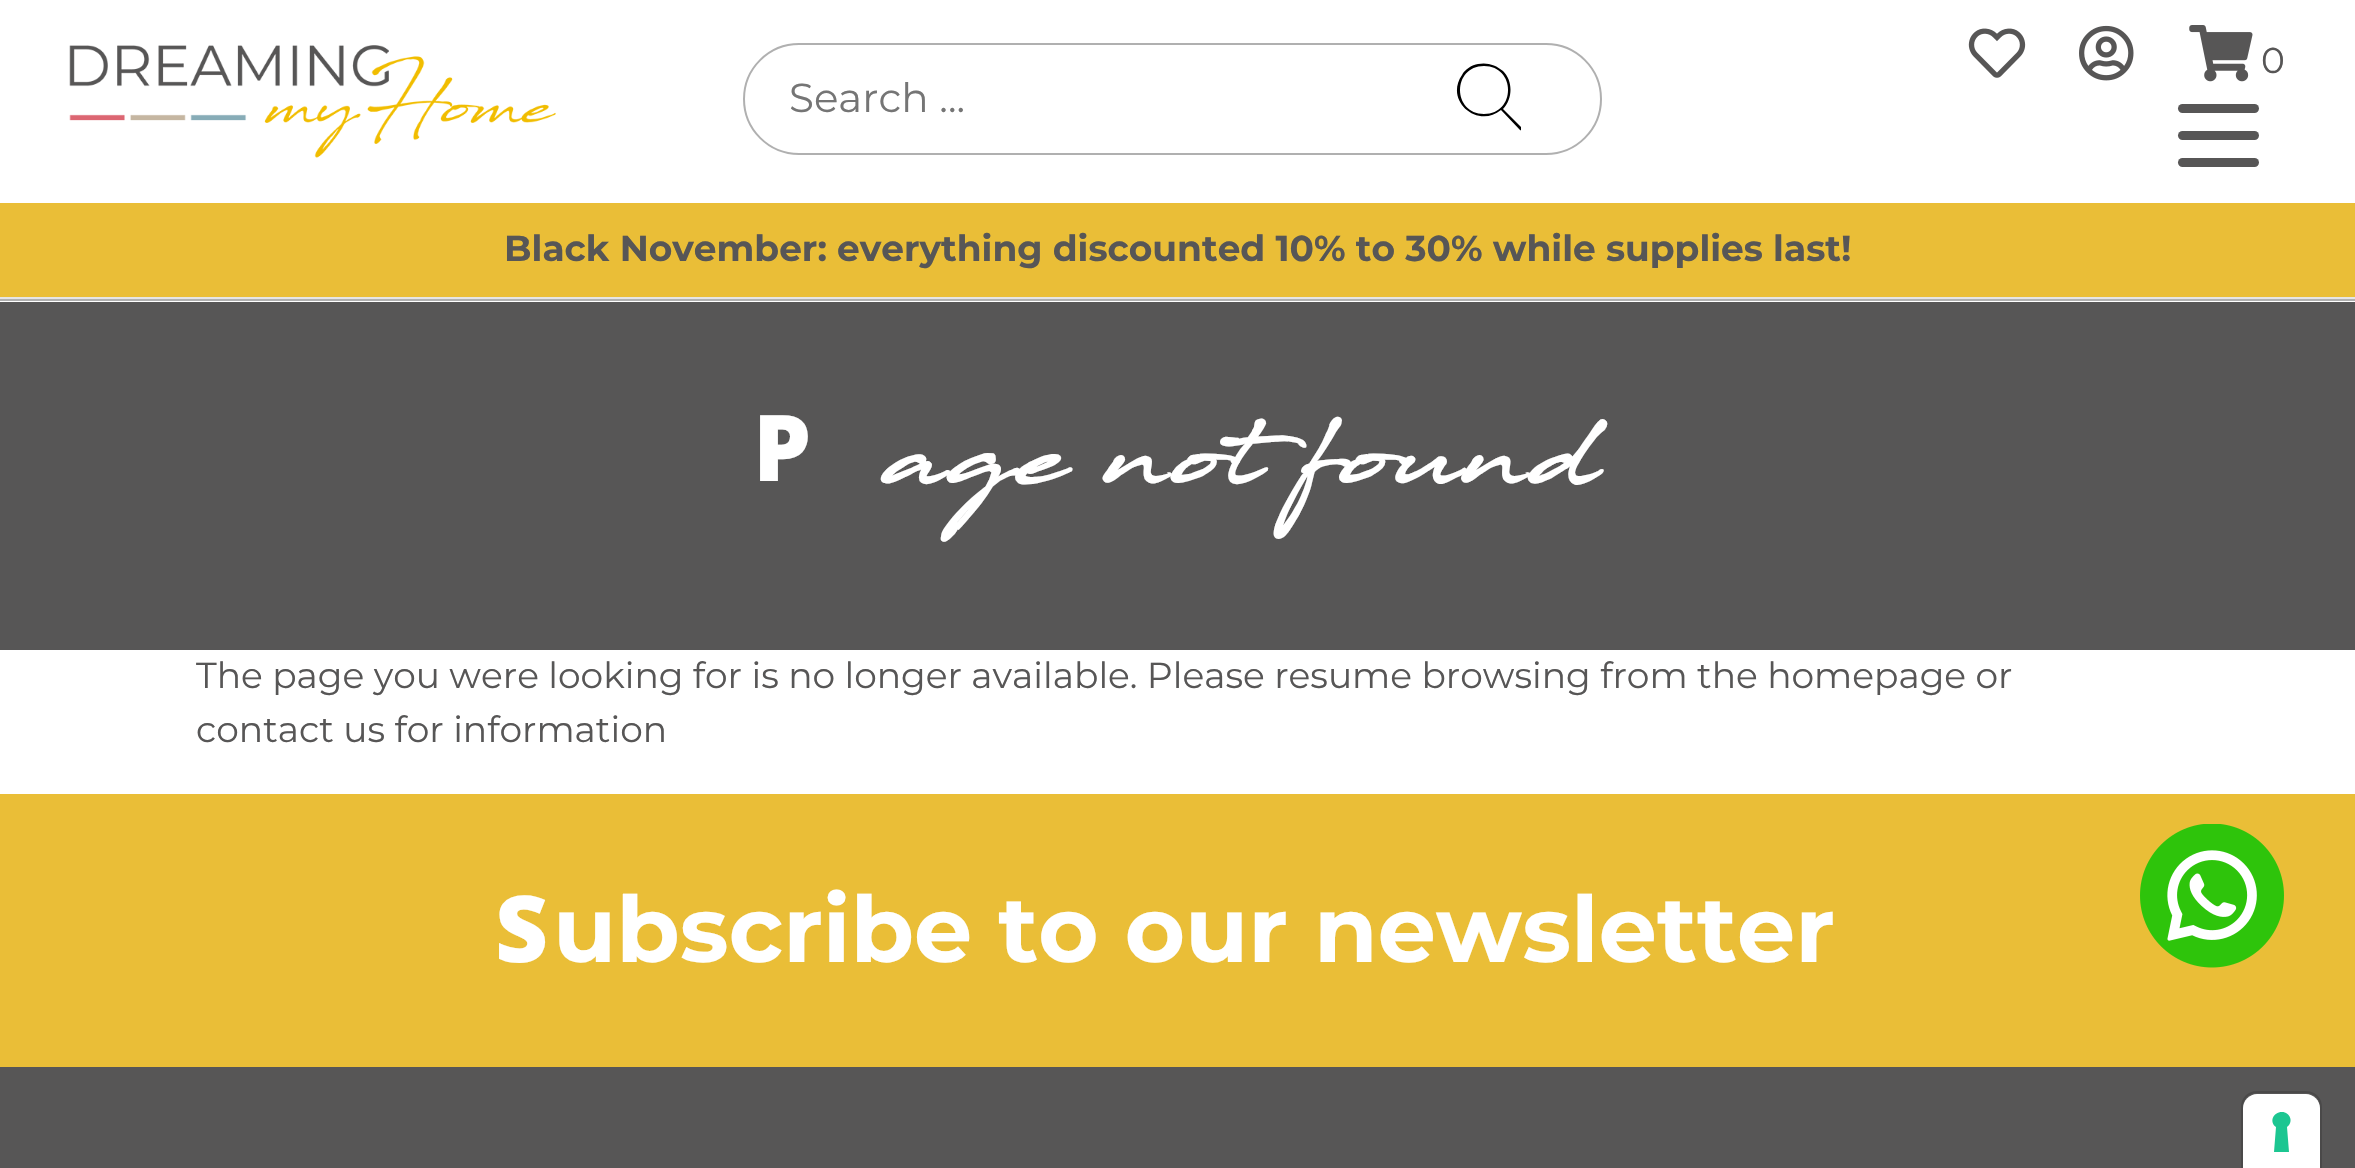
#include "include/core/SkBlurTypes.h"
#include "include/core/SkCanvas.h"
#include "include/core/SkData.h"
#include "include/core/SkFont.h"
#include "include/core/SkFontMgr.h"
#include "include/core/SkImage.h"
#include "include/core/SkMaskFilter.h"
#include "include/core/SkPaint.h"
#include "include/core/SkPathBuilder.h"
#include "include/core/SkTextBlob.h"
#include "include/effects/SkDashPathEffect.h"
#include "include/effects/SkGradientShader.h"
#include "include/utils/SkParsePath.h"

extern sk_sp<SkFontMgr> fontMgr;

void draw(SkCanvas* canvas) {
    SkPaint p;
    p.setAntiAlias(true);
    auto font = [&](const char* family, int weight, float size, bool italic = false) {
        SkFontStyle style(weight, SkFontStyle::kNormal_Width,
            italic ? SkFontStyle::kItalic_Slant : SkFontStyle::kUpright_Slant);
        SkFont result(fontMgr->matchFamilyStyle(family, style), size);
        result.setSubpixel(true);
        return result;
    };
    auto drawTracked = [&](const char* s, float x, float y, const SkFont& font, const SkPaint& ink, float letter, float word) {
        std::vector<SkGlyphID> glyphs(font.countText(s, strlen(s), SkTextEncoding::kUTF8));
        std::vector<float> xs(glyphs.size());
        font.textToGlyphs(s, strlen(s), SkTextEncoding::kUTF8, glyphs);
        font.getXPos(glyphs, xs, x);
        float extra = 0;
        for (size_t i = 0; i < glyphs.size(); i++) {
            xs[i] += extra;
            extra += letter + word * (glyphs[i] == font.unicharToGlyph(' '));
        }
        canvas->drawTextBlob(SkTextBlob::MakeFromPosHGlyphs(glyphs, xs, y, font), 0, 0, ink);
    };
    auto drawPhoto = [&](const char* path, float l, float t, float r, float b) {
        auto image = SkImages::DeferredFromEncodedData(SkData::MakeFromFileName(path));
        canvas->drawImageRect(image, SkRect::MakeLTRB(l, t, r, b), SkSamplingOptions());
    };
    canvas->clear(0xFFFFFFFF);
    p.setColor(0xFFB0B0B0);
    canvas->drawRect(SkRect::MakeLTRB(0, 299, 2355, 301), p);
    drawPhoto("media/1.png", 69, 45, 556, 158);
    drawPhoto("media/2.png", 1968, 28, 2026, 78);
    drawPhoto("media/3.png", 2079, 25, 2134, 81);
    drawPhoto("media/4.png", 2189, 25, 2253, 82);
    auto font1 = font("Montserrat", 400, 36);
    p.setColor(0xFF575656);
    canvas->drawString("0", 2261, 73, font1, p);
    canvas->drawRoundRect(SkRect::MakeLTRB(2178, 104, 2259, 113), 4.5f, 4.5f, p);
    canvas->drawRoundRect(SkRect::MakeLTRB(2178, 131, 2259, 140), 4.5f, 4.5f, p);
    canvas->drawRoundRect(SkRect::MakeLTRB(2178, 158, 2259, 167), 4.5f, 4.5f, p);
    p.setStyle(SkPaint::kStroke_Style);
    p.setStrokeWidth(2);
    p.setColor(0xFFB0B0B0);
    canvas->drawRoundRect(SkRect::MakeLTRB(744, 44, 1601, 154), 55, 55, p);
    auto font2 = font("Montserrat", 400, 40.5f);
    p.setStyle(SkPaint::kFill_Style);
    p.setColor(0xFF757575);
    canvas->drawString("Search ...", 789, 112, font2, p);
    canvas->save();
    canvas->clipRect(SkRect::MakeLTRB(1456, 63, 1521, 131));
    p.setColor(0xFF000000);
    canvas->drawPath(SkPathBuilder().moveTo(1522, 128).lineTo(1503, 109).cubicTo(1513, 98, 1513, 81, 1503, 71).cubicTo(1496, 65, 1487, 62, 1478, 64).cubicTo(1472, 65, 1465, 69, 1462, 75).cubicTo(1444, 101, 1478, 129, 1501, 110).lineTo(1520, 130).cubicTo(1521, 131, 1523, 129, 1522, 128).close().moveTo(1484, 114).cubicTo(1452, 114, 1452, 66, 1484, 66).cubicTo(1516, 66, 1516, 114, 1484, 114).close().detach(), p);
    canvas->restore();
    p.setColor(0xFFEABE37);
    canvas->drawRect(SkRect::MakeLTRB(0, 203, 2355, 297), p);
    p.setColor(0xFFE5E5E5);
    canvas->drawRect(SkRect::MakeLTRB(0, 297, 2355, 299), p);
    auto font3 = font("Montserrat", 700, 36);
    p.setColor(0xFF575656);
    canvas->drawString("Black November: everything discounted 10% to 30% while supplies last!", 504, 261, font3, p);
    canvas->drawRect(SkRect::MakeLTRB(0, 302, 2355, 650), p);
    auto font4 = font("Noto Sans", 900, 92.1f);
    p.setColor(0xFFFFFFFF);
    drawTracked("P", 753, 481, font4, p, 4.5f, 0);
    auto font5 = font("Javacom", 700, 92.1f);
    drawTracked("age not found", 885, 481, font5, p, 4.5f, 0);
    p.setColor(0xFF575656);
    canvas->drawString("The page you were looking for is no longer available. Please resume browsing from the homepage or", 196, 688, font1, p);
    canvas->drawString("contact us for information", 196, 742, font1, p);
    p.setColor(0xFFEABE37);
    canvas->drawRect(SkRect::MakeLTRB(0, 794, 2355, 1067), p);
    p.setColor(0xFFFFFFFF);
    canvas->drawString("S", 495, 962, font4, p);
    auto font6 = font("Montserrat", 700, 92.1f);
    canvas->drawString("ubscribe to our newsletter", 553, 962, font6, p);
    drawPhoto("media/5.png", 2140, 824, 2284, 968);
    p.setColor(0xFF575656);
    canvas->drawRect(SkRect::MakeLTRB(0, 1067, 2355, 1168), p);
    p.setStyle(SkPaint::kStroke_Style);
    p.setColor(0xFF4A4949);
    canvas->drawPath(SkPathBuilder().moveTo(2257, 1092).lineTo(2306, 1092).cubicTo(2314.5f, 1092, 2321, 1098.5f, 2321, 1107).lineTo(2321, 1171).lineTo(2242, 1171).lineTo(2242, 1107).cubicTo(2242, 1098.5f, 2248.5f, 1092, 2257, 1092).close().detach(), p);
    p.setStyle(SkPaint::kFill_Style);
    p.setColor(0xFFFFFFFF);
    canvas->drawPath(SkPathBuilder().moveTo(2257, 1094).lineTo(2306, 1094).cubicTo(2313.5f, 1094, 2320, 1100.5f, 2320, 1108).lineTo(2320, 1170).lineTo(2243, 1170).lineTo(2243, 1108).cubicTo(2243, 1100.5f, 2249.5f, 1094, 2257, 1094).close().detach(), p);
    p.setColor(0xFF1CC691);
    canvas->drawPath(SkPathBuilder(SkPathFillType::kEvenOdd).moveTo(2282, 1112).cubicTo(2290, 1112, 2294, 1122, 2287, 1127).lineTo(2289, 1152).lineTo(2274, 1152).lineTo(2276, 1127).cubicTo(2269, 1122, 2273, 1112, 2282, 1112).close().detach(), p);
}
